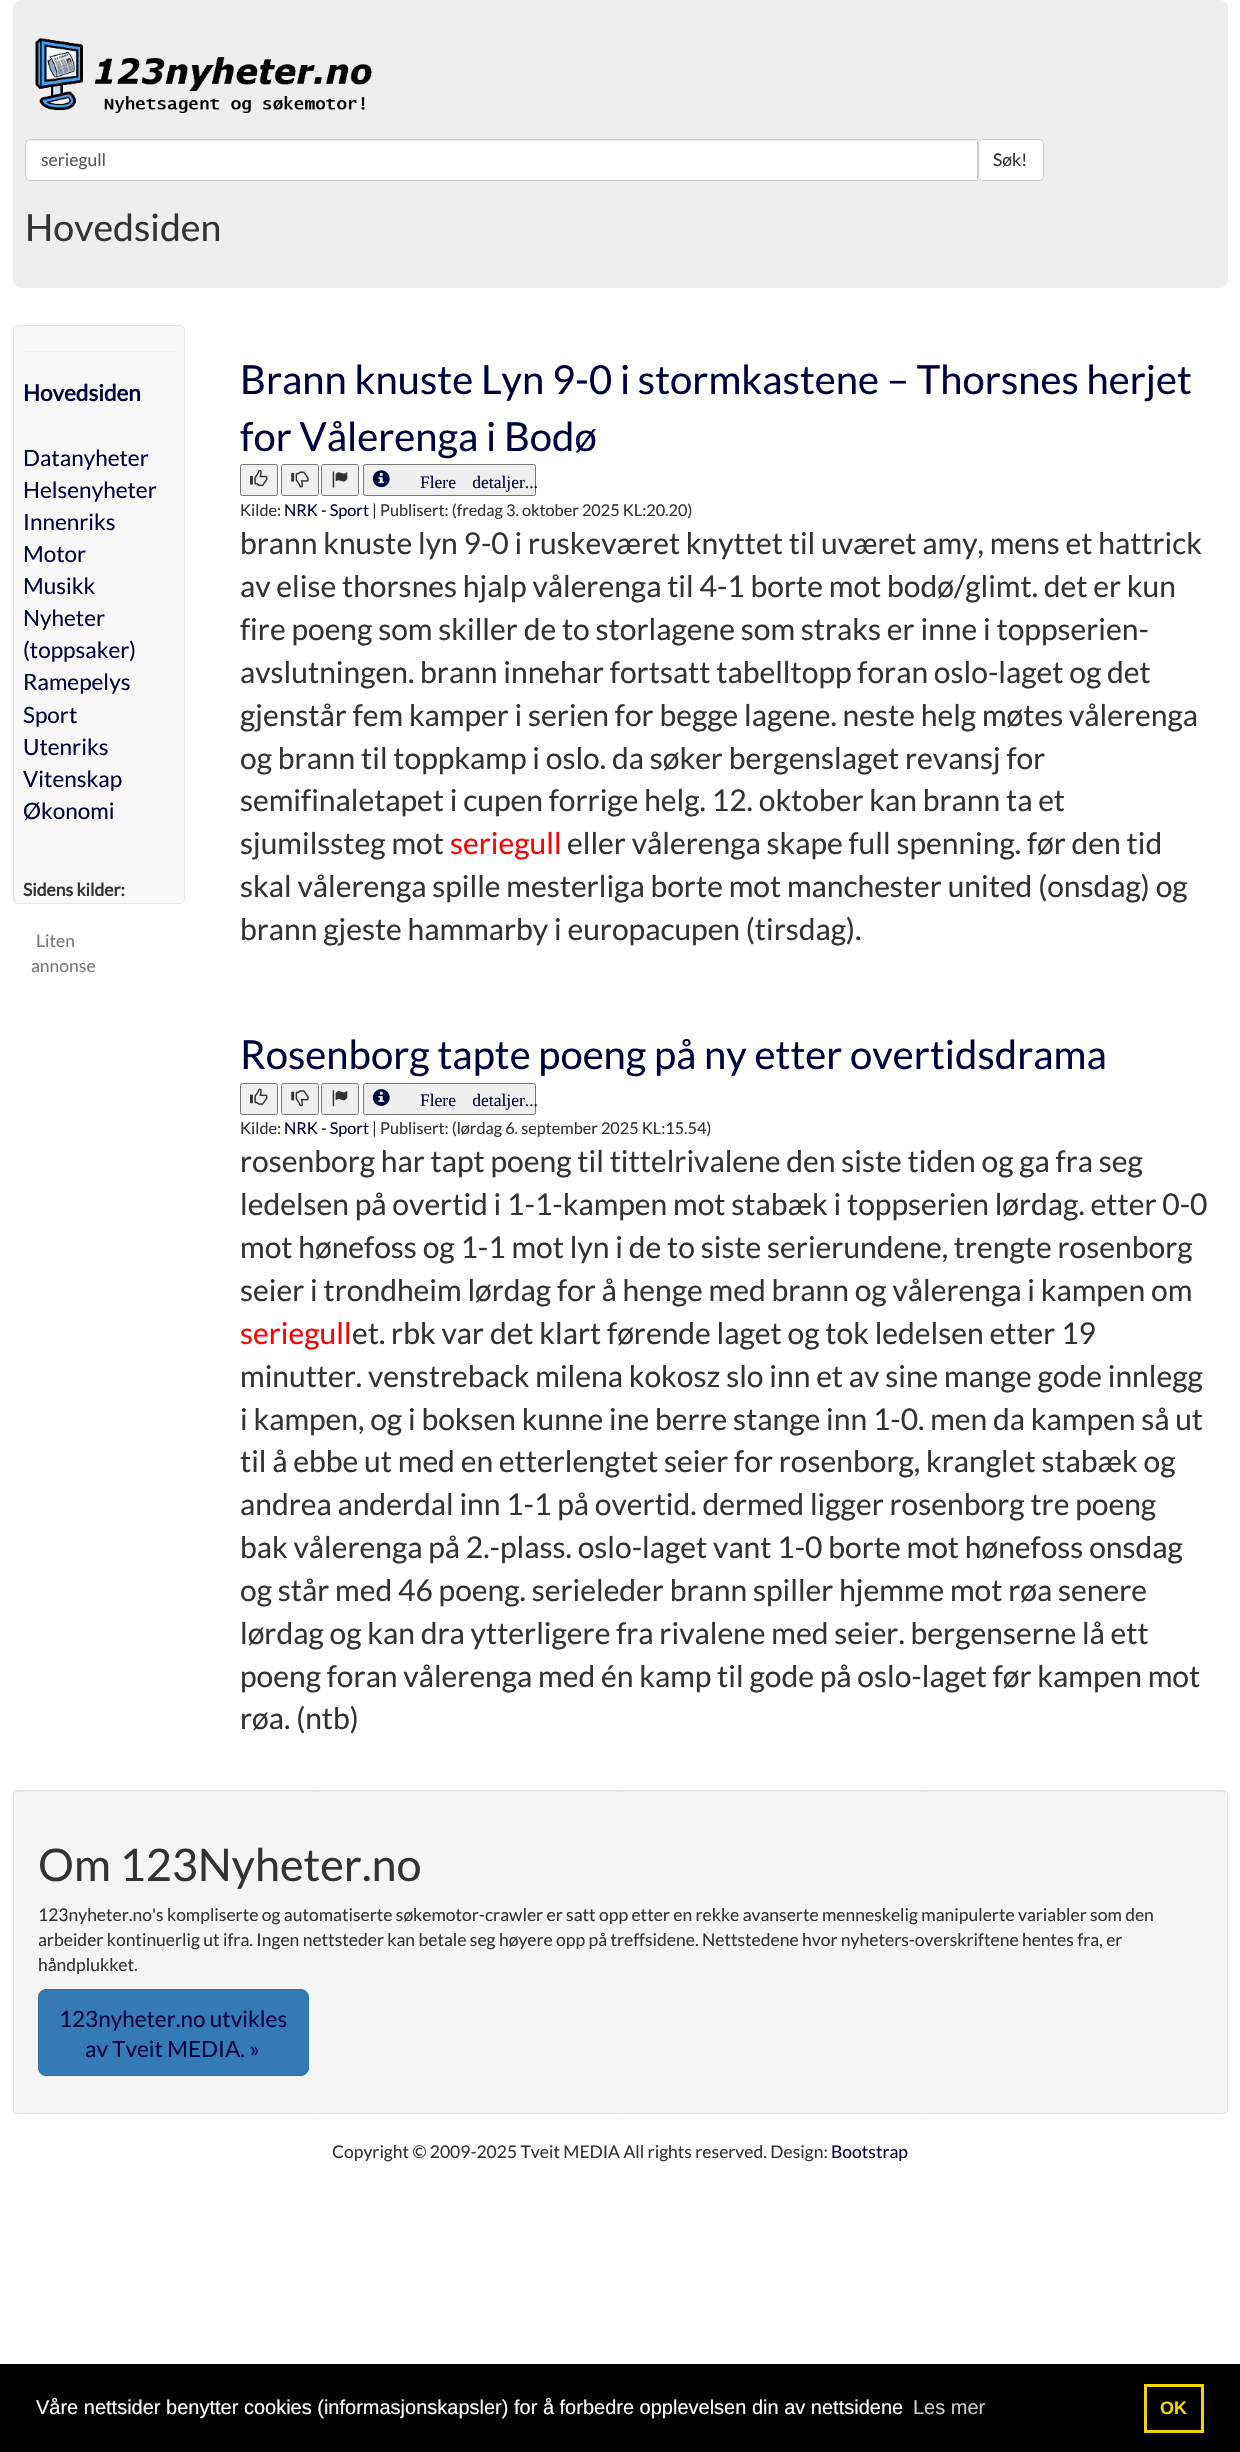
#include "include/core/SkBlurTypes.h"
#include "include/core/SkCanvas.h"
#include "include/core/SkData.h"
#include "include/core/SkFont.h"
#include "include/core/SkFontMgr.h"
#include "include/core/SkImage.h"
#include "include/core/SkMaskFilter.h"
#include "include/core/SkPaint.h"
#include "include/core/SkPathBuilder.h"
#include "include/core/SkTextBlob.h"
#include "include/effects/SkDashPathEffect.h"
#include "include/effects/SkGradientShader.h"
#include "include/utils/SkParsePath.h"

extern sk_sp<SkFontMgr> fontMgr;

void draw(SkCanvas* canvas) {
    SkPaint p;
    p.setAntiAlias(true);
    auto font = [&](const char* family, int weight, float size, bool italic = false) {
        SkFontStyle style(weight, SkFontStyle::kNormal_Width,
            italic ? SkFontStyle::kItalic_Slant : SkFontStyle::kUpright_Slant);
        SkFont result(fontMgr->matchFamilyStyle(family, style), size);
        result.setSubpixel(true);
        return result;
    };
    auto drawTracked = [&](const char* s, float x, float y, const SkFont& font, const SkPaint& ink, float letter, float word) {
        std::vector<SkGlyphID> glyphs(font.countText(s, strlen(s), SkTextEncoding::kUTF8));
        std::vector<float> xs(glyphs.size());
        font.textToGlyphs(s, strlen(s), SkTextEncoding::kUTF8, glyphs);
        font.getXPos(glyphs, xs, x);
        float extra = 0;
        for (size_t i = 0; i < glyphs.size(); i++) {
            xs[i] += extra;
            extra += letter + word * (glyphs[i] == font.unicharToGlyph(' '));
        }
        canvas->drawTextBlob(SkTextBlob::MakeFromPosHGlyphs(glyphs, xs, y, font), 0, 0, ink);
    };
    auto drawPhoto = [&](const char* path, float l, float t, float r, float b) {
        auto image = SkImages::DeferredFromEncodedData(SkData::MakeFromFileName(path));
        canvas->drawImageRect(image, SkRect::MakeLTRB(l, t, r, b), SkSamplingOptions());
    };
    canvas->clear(0xFFFFFFFF);
    p.setColor(0xFFEEEEEE);
    canvas->drawRoundRect(SkRect::MakeLTRB(13, 0, 1228, 288), 8, 8, p);
    drawPhoto("media/1.png", 35, 38, 372, 113);
    p.setColor(0xFFFFFFFF);
    canvas->drawPath(SkPathBuilder().moveTo(30, 139).lineTo(978, 139).lineTo(978, 181).lineTo(30, 181).cubicTo(27, 181, 25, 179, 25, 176).lineTo(25, 144).cubicTo(25, 141, 27, 139, 30, 139).close().detach(), p);
    p.setColor(0xFFECECEC);
    canvas->drawPath(SkPathBuilder().moveTo(30, 141).lineTo(976, 141).lineTo(976, 140).lineTo(30, 140).cubicTo(27, 140, 26, 142, 26, 145).cubicTo(26, 143, 28, 141, 30, 141).close().detach(), p);
    p.setStyle(SkPaint::kStroke_Style);
    p.setStrokeWidth(1);
    p.setColor(0xFFCCCCCC);
    canvas->drawPath(SkPathBuilder().moveTo(30, 139.5f).lineTo(977.5f, 139.5f).lineTo(977.5f, 180.5f).lineTo(30, 180.5f).cubicTo(27.5f, 180.5f, 25.5f, 178.5f, 25.5f, 176).lineTo(25.5f, 144).cubicTo(25.5f, 141.5f, 27.5f, 139.5f, 30, 139.5f).close().detach(), p);
    auto font1 = font("Lato", 400, 17.5f);
    p.setStyle(SkPaint::kFill_Style);
    p.setColor(0xFF555555);
    canvas->drawString("seriegull", 41, 166, font1, p);
    p.setColor(0xFFFFFFFF);
    canvas->drawRoundRect(SkRect::MakeLTRB(978.5f, 139.5f, 1043.5f, 180.5f), 4.5f, 4.5f, p);
    p.setStyle(SkPaint::kStroke_Style);
    p.setColor(0xFFCCCCCC);
    canvas->drawRoundRect(SkRect::MakeLTRB(978.5f, 139.5f, 1043.5f, 180.5f), 4.5f, 4.5f, p);
    p.setStyle(SkPaint::kFill_Style);
    p.setColor(0xFF333333);
    canvas->drawString("Søk!", 993, 166, font1, p);
    auto font2 = font("Lato", 400, 37.5f);
    canvas->drawString("Hovedsiden", 25, 241, font2, p);
    p.setColor(0xFFF8F8F8);
    canvas->drawRoundRect(SkRect::MakeLTRB(13.5f, 325.5f, 184.5f, 903.5f), 4.5f, 4.5f, p);
    p.setStyle(SkPaint::kStroke_Style);
    p.setColor(0xFFE7E7E7);
    canvas->drawRoundRect(SkRect::MakeLTRB(13.5f, 325.5f, 184.5f, 903.5f), 4.5f, 4.5f, p);
    p.setStyle(SkPaint::kFill_Style);
    p.setColor(0xFFEEEEEE);
    canvas->drawRect(SkRect::MakeLTRB(23, 351, 175, 352), p);
    auto font3 = font("Lato", 700, 22.5f);
    p.setColor(0xFF00023E);
    canvas->drawString("Hovedsiden", 23, 401, font3, p);
    auto font4 = font("Lato", 400, 22.5f);
    {
        const struct { const char* s; float x, y; } items[] = {
            {"Datanyheter", 23, 466},
            {"Helsenyheter", 23, 498},
            {"Innenriks", 23, 530},
            {"Motor", 23, 562},
            {"Musikk", 23, 594},
            {"Nyheter", 23, 626},
            {"(toppsaker)", 23, 658},
            {"Ramepelys", 23, 690},
            {"Sport", 23, 723},
            {"Utenriks", 23, 755},
            {"Vitenskap", 23, 787},
            {"Økonomi", 23, 819},
        };
        for (auto [s, x, y] : items) {
            canvas->drawString(s, x, y, font4, p);
        }
    }
    auto font5 = font("Lato", 700, 17.5f);
    p.setColor(0xFF333333);
    canvas->drawString("Sidens kilder:", 23, 896, font5, p);
    p.setColor(0xFF777777);
    canvas->drawString("Liten", 36, 947, font1, p);
    canvas->drawString("annonse", 31, 972, font1, p);
    auto font6 = font("Lato", 400, 40);
    p.setColor(0xFF00023E);
    canvas->drawString("Brann knuste Lyn 9-0 i stormkastene – Thorsnes herjet", 240, 394, font6, p);
    canvas->drawString("for Vålerenga i Bodø", 240, 451, font6, p);
    p.setColor(0xFFEFEFEF);
    canvas->drawRoundRect(SkRect::MakeLTRB(240.5f, 464.5f, 277.5f, 495.5f), 2, 2, p);
    p.setStyle(SkPaint::kStroke_Style);
    p.setColor(0xFF767676);
    canvas->drawRoundRect(SkRect::MakeLTRB(240.5f, 464.5f, 277.5f, 495.5f), 2, 2, p);
    drawPhoto("media/2.png", 250, 470, 268, 487);
    p.setStyle(SkPaint::kFill_Style);
    p.setColor(0xFFEFEFEF);
    canvas->drawRoundRect(SkRect::MakeLTRB(281.5f, 464.5f, 318.5f, 495.5f), 2, 2, p);
    p.setStyle(SkPaint::kStroke_Style);
    p.setColor(0xFF767676);
    canvas->drawRoundRect(SkRect::MakeLTRB(281.5f, 464.5f, 318.5f, 495.5f), 2, 2, p);
    drawPhoto("media/3.png", 291, 471, 309, 488);
    p.setStyle(SkPaint::kFill_Style);
    p.setColor(0xFFEFEFEF);
    canvas->drawRoundRect(SkRect::MakeLTRB(321.5f, 464.5f, 358.5f, 495.5f), 2, 2, p);
    p.setStyle(SkPaint::kStroke_Style);
    p.setColor(0xFF767676);
    canvas->drawRoundRect(SkRect::MakeLTRB(321.5f, 464.5f, 358.5f, 495.5f), 2, 2, p);
    drawPhoto("media/4.png", 332, 471, 348, 488);
    p.setStyle(SkPaint::kFill_Style);
    p.setColor(0xFFEFEFEF);
    canvas->drawRoundRect(SkRect::MakeLTRB(363.5f, 464.5f, 535.5f, 495.5f), 2, 2, p);
    p.setStyle(SkPaint::kStroke_Style);
    p.setColor(0xFF767676);
    canvas->drawRoundRect(SkRect::MakeLTRB(363.5f, 464.5f, 535.5f, 495.5f), 2, 2, p);
    drawPhoto("media/5.png", 372, 470, 390, 488);
    auto font7 = font("Liberation Serif", 400, 17.5f);
    p.setStyle(SkPaint::kFill_Style);
    p.setColor(0xFF00023E);
    drawTracked("Flere detaljer...", 420, 488, font7, p, 0, 12);
    auto font8 = font("Lato", 400, 16.25f);
    p.setColor(0xFF333333);
    canvas->drawString("Kilde:", 240, 516, font8, p);
    p.setColor(0xFF00023E);
    canvas->drawString("NRK - Sport", 284, 516, font8, p);
    p.setColor(0xFF333333);
    canvas->drawString("| Publisert: (fredag 3. oktober 2025 KL:20.20)", 372, 516, font8, p);
    auto font9 = font("Lato", 400, 30);
    {
        const struct { const char* s; float x, y; } items[] = {
            {"brann knuste lyn 9-0 i ruskeværet knyttet til uværet amy, mens et hattrick", 240, 554},
            {"av elise thorsnes hjalp vålerenga til 4-1 borte mot bodø/glimt. det er kun", 240, 597},
            {"fire poeng som skiller de to storlagene som straks er inne i toppserien-", 240, 640},
            {"avslutningen. brann innehar fortsatt tabelltopp foran oslo-laget og det", 240, 683},
            {"gjenstår fem kamper i serien for begge lagene. neste helg møtes vålerenga", 240, 726},
            {"og brann til toppkamp i oslo. da søker bergenslaget revansj for", 240, 769},
            {"semifinaletapet i cupen forrige helg. 12. oktober kan brann ta et", 240, 811},
            {"sjumilssteg mot", 240, 854},
        };
        for (auto [s, x, y] : items) {
            canvas->drawString(s, x, y, font9, p);
        }
    }
    p.setColor(0xFFFF0000);
    canvas->drawString("seriegull", 450, 854, font9, p);
    p.setColor(0xFF333333);
    {
        const struct { const char* s; float x, y; } items[] = {
            {"eller vålerenga skape full spenning. før den tid", 567, 854},
            {"skal vålerenga spille mesterliga borte mot manchester united (onsdag) og", 240, 897},
            {"brann gjeste hammarby i europacupen (tirsdag).", 240, 940},
        };
        for (auto [s, x, y] : items) {
            canvas->drawString(s, x, y, font9, p);
        }
    }
    p.setColor(0xFF00023E);
    canvas->drawString("Rosenborg tapte poeng på ny etter overtidsdrama", 240, 1069, font6, p);
    p.setColor(0xFFEFEFEF);
    canvas->drawRoundRect(SkRect::MakeLTRB(240.5f, 1083.5f, 277.5f, 1114.5f), 2, 2, p);
    p.setStyle(SkPaint::kStroke_Style);
    p.setColor(0xFF767676);
    canvas->drawRoundRect(SkRect::MakeLTRB(240.5f, 1083.5f, 277.5f, 1114.5f), 2, 2, p);
    drawPhoto("media/6.png", 250, 1088, 268, 1105);
    p.setStyle(SkPaint::kFill_Style);
    p.setColor(0xFFEFEFEF);
    canvas->drawRoundRect(SkRect::MakeLTRB(281.5f, 1083.5f, 318.5f, 1114.5f), 2, 2, p);
    p.setStyle(SkPaint::kStroke_Style);
    p.setColor(0xFF767676);
    canvas->drawRoundRect(SkRect::MakeLTRB(281.5f, 1083.5f, 318.5f, 1114.5f), 2, 2, p);
    drawPhoto("media/7.png", 291, 1090, 309, 1107);
    p.setStyle(SkPaint::kFill_Style);
    p.setColor(0xFFEFEFEF);
    canvas->drawRoundRect(SkRect::MakeLTRB(321.5f, 1083.5f, 358.5f, 1114.5f), 2, 2, p);
    p.setStyle(SkPaint::kStroke_Style);
    p.setColor(0xFF767676);
    canvas->drawRoundRect(SkRect::MakeLTRB(321.5f, 1083.5f, 358.5f, 1114.5f), 2, 2, p);
    drawPhoto("media/8.png", 332, 1090, 348, 1107);
    p.setStyle(SkPaint::kFill_Style);
    p.setColor(0xFFEFEFEF);
    canvas->drawRoundRect(SkRect::MakeLTRB(363.5f, 1083.5f, 535.5f, 1114.5f), 2, 2, p);
    p.setStyle(SkPaint::kStroke_Style);
    p.setColor(0xFF767676);
    canvas->drawRoundRect(SkRect::MakeLTRB(363.5f, 1083.5f, 535.5f, 1114.5f), 2, 2, p);
    drawPhoto("media/9.png", 372, 1089, 390, 1106);
    p.setStyle(SkPaint::kFill_Style);
    p.setColor(0xFF00023E);
    drawTracked("Flere detaljer...", 420, 1106, font7, p, 0, 12);
    p.setColor(0xFF333333);
    canvas->drawString("Kilde:", 240, 1134, font8, p);
    p.setColor(0xFF00023E);
    canvas->drawString("NRK - Sport", 284, 1134, font8, p);
    p.setColor(0xFF333333);
    canvas->drawString("| Publisert: (lørdag 6. september 2025 KL:15.54)", 372, 1134, font8, p);
    {
        const struct { const char* s; float x, y; } items[] = {
            {"rosenborg har tapt poeng til tittelrivalene den siste tiden og ga fra seg", 240, 1172},
            {"ledelsen på overtid i 1-1-kampen mot stabæk i toppserien lørdag. etter 0-0", 240, 1215},
            {"mot hønefoss og 1-1 mot lyn i de to siste serierundene, trengte rosenborg", 240, 1258},
            {"seier i trondheim lørdag for å henge med brann og vålerenga i kampen om", 240, 1301},
        };
        for (auto [s, x, y] : items) {
            canvas->drawString(s, x, y, font9, p);
        }
    }
    p.setColor(0xFFFF0000);
    canvas->drawString("seriegull", 240, 1344, font9, p);
    p.setColor(0xFF333333);
    {
        const struct { const char* s; float x, y; } items[] = {
            {"et. rbk var det klart førende laget og tok ledelsen etter 19", 352, 1344},
            {"minutter. venstreback milena kokosz slo inn et av sine mange gode innlegg", 240, 1387},
            {"i kampen, og i boksen kunne ine berre stange inn 1-0. men da kampen så ut", 240, 1430},
            {"til å ebbe ut med en etterlengtet seier for rosenborg, kranglet stabæk og", 240, 1472},
            {"andrea anderdal inn 1-1 på overtid. dermed ligger rosenborg tre poeng", 240, 1515},
            {"bak vålerenga på 2.-plass. oslo-laget vant 1-0 borte mot hønefoss onsdag", 240, 1558},
            {"og står med 46 poeng. serieleder brann spiller hjemme mot røa senere", 240, 1601},
            {"lørdag og kan dra ytterligere fra rivalene med seier. bergenserne lå ett", 240, 1644},
            {"poeng foran vålerenga med én kamp til gode på oslo-laget før kampen mot", 240, 1687},
            {"røa. (ntb)", 240, 1729},
        };
        for (auto [s, x, y] : items) {
            canvas->drawString(s, x, y, font9, p);
        }
    }
    p.setColor(0xFFF5F5F5);
    canvas->drawRoundRect(SkRect::MakeLTRB(13, 1790, 1228, 2114), 5, 5, p);
    p.setColor(0xFFE9E9E9);
    canvas->drawPath(SkPathBuilder().moveTo(18, 1792).lineTo(1222, 1792).cubicTo(1225, 1792, 1226, 1794, 1226, 1796).cubicTo(1226, 1793, 1225, 1791, 1222, 1791).lineTo(18, 1791).cubicTo(15, 1791, 14, 1793, 14, 1796).cubicTo(14, 1794, 15, 1792, 18, 1792).close().detach(), p);
    p.setStyle(SkPaint::kStroke_Style);
    p.setColor(0xFFE3E3E3);
    canvas->drawRoundRect(SkRect::MakeLTRB(13.5f, 1790.5f, 1227.5f, 2113.5f), 4.5f, 4.5f, p);
    auto font10 = font("Lato", 400, 45);
    p.setStyle(SkPaint::kFill_Style);
    p.setColor(0xFF333333);
    canvas->drawString("Om 123Nyheter.no", 38, 1881, font10, p);
    {
        const struct { const char* s; float x, y; } items[] = {
            {"123nyheter.no's kompliserte og automatiserte søkemotor-crawler er satt opp etter en rekke avanserte menneskelig manipulerte variabler som den", 38, 1921},
            {"arbeider kontinuerlig ut ifra. Ingen nettsteder kan betale seg høyere opp på treffsidene. Nettstedene hvor nyheters-overskriftene hentes fra, er", 38, 1946},
            {"håndplukket.", 38, 1971},
        };
        for (auto [s, x, y] : items) {
            canvas->drawString(s, x, y, font1, p);
        }
    }
    p.setColor(0xFF337AB7);
    canvas->drawRoundRect(SkRect::MakeLTRB(38.5f, 1989.5f, 308.5f, 2075.5f), 7.5f, 7.5f, p);
    p.setStyle(SkPaint::kStroke_Style);
    p.setColor(0xFF2E6DA4);
    canvas->drawRoundRect(SkRect::MakeLTRB(38.5f, 1989.5f, 308.5f, 2075.5f), 7.5f, 7.5f, p);
    p.setStyle(SkPaint::kFill_Style);
    p.setColor(0xFF00023E);
    canvas->drawString("123nyheter.no utvikles", 59, 2027, font4, p);
    canvas->drawString("av Tveit MEDIA. »", 85, 2057, font4, p);
    p.setColor(0xFF333333);
    canvas->drawString("Copyright © 2009-2025 Tveit MEDIA All rights reserved. Design:", 332, 2158, font1, p);
    p.setColor(0xFF00023E);
    canvas->drawString("Bootstrap", 831, 2158, font1, p);
    p.setColor(0xFF000000);
    canvas->drawRect(SkRect::MakeLTRB(0, 2364, 1240, 2452), p);
    auto font11 = font("Liberation Sans", 400, 20);
    p.setColor(0xFFFFFFFF);
    canvas->drawString("Våre nettsider benytter cookies (informasjonskapsler) for å forbedre opplevelsen din av nettsidene", 36, 2414, font11, p);
    p.setColor(0xFFCCCCCC);
    canvas->drawString("Les mer", 913, 2414, font11, p);
    p.setStyle(SkPaint::kStroke_Style);
    p.setStrokeWidth(3);
    p.setColor(0xFFF1D600);
    canvas->drawRect(SkRect::MakeLTRB(1145.5f, 2385.5f, 1202.5f, 2431.5f), p);
    auto font12 = font("Liberation Sans", 700, 18);
    p.setStyle(SkPaint::kFill_Style);
    canvas->drawString("OK", 1160, 2414, font12, p);
}
